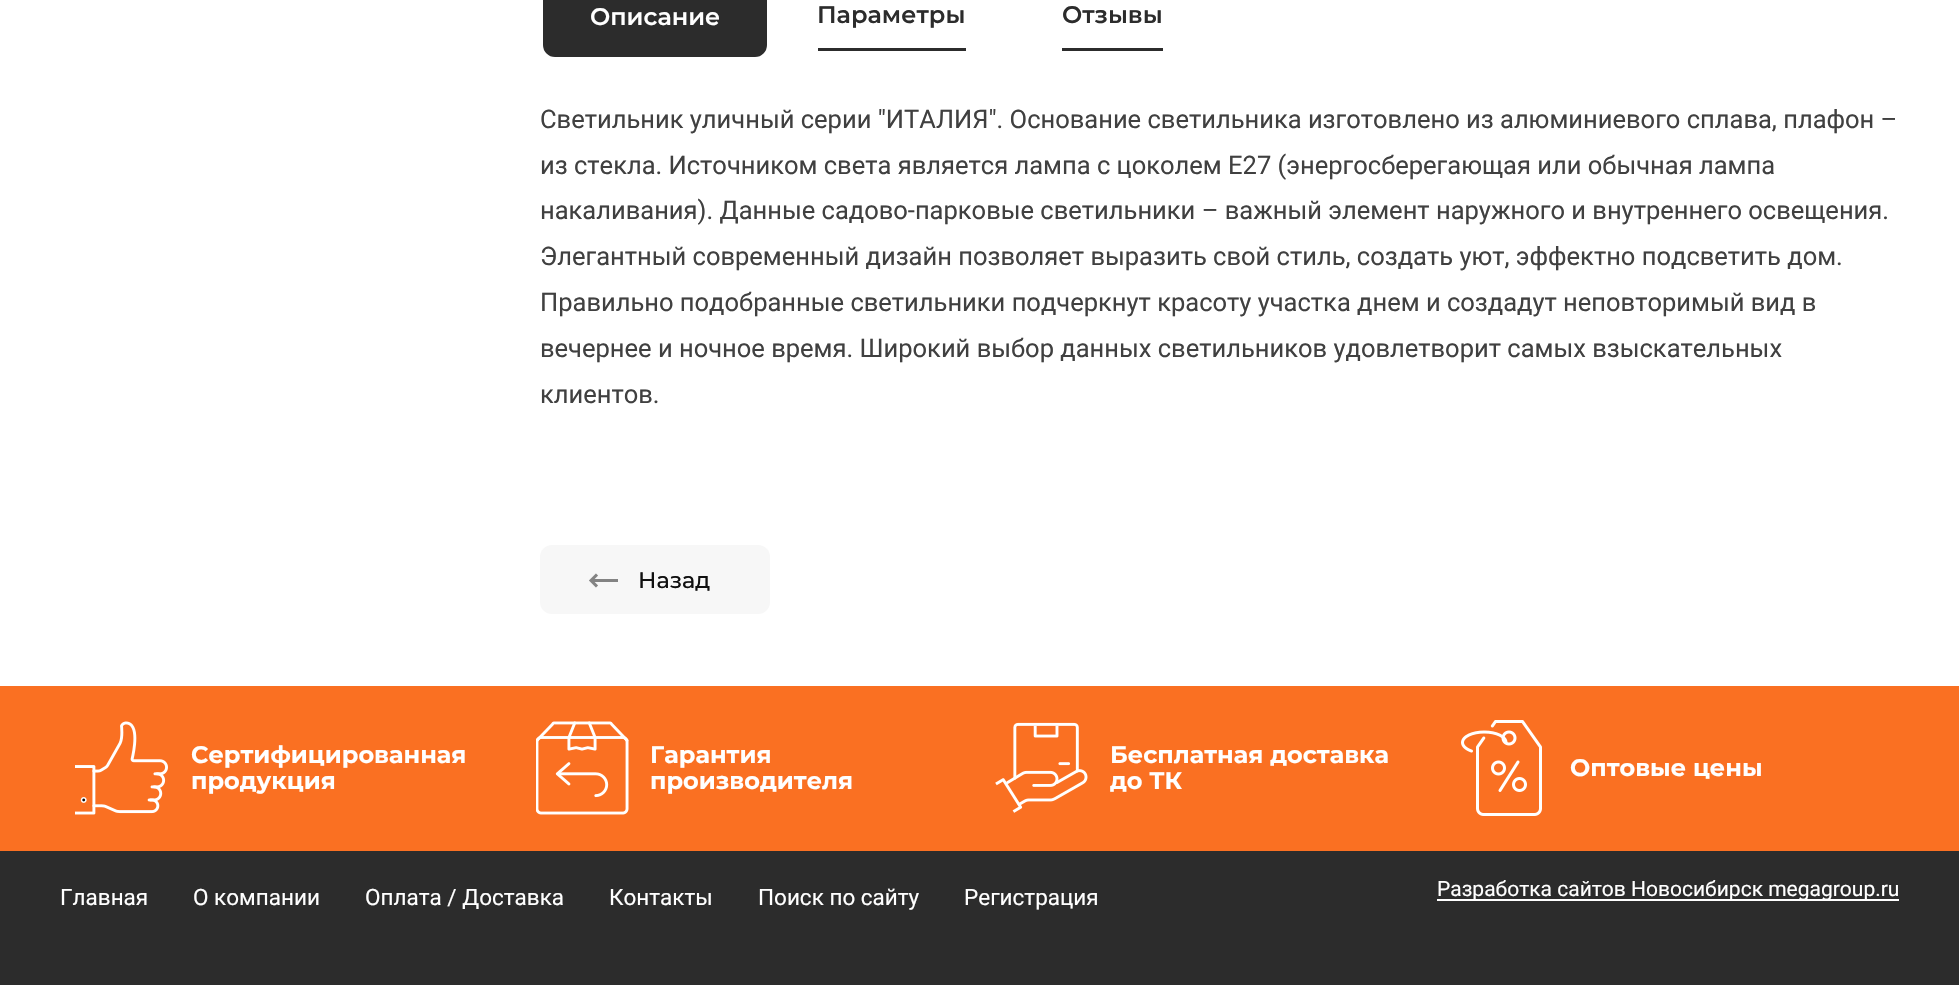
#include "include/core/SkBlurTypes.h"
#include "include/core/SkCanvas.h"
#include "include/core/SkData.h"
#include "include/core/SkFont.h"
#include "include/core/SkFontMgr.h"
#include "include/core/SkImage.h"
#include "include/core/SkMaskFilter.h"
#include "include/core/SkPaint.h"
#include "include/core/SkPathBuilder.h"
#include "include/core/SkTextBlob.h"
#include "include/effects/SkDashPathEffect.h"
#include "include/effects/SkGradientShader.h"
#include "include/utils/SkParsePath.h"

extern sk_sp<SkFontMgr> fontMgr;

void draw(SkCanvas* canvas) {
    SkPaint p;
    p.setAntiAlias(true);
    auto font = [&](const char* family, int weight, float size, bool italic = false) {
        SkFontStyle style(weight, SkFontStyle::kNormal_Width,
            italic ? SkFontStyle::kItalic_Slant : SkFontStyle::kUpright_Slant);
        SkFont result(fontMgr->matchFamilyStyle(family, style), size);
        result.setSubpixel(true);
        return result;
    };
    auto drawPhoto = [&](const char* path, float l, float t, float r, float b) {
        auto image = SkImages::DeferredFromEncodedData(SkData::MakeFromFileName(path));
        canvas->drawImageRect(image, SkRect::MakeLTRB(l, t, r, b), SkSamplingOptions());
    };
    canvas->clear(0xFF2C2C2C);
    p.setColor(0xFFFFFFFF);
    canvas->drawRect(SkRect::MakeLTRB(0, 0, 1959, 686), p);
    p.setColor(0xFF2C2C2C);
    canvas->drawRoundRect(SkRect::MakeLTRB(544, -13, 766, 56), 11, 11, p);
    p.setStyle(SkPaint::kStroke_Style);
    p.setStrokeWidth(2);
    canvas->drawRoundRect(SkRect::MakeLTRB(544, -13, 766, 56), 11, 11, p);
    auto font1 = font("Montserrat", 600, 24);
    p.setStyle(SkPaint::kFill_Style);
    p.setColor(0xFFFFFFFF);
    canvas->drawString("Описание", 590, 25, font1, p);
    p.setColor(0xFF2C2C2C);
    canvas->drawString("Параметры", 817, 23, font1, p);
    canvas->drawRect(SkRect::MakeLTRB(818, 48, 966, 51), p);
    canvas->drawString("Отзывы", 1062, 23, font1, p);
    canvas->drawRect(SkRect::MakeLTRB(1062, 48, 1163, 51), p);
    auto font2 = font("Roboto", 400, 25.5f);
    p.setColor(0xFF404040);
    {
        const struct { const char* s; float x, y; } items[] = {
            {"Светильник уличный серии \"ИТАЛИЯ\". Основание светильника изготовлено из алюминиевого сплава, плафон –", 540, 128},
            {"из стекла. Источником света является лампа с цоколем E27 (энергосберегающая или обычная лампа", 540, 174},
            {"накаливания). Данные садово-парковые светильники – важный элемент наружного и внутреннего освещения.", 540, 219},
            {"Элегантный современный дизайн позволяет выразить свой стиль, создать уют, эффектно подсветить дом.", 540, 265},
            {"Правильно подобранные светильники подчеркнут красоту участка днем и создадут неповторимый вид в", 540, 311},
            {"вечернее и ночное время. Широкий выбор данных светильников удовлетворит самых взыскательных", 540, 357},
            {"клиентов.", 540, 403},
        };
        for (auto [s, x, y] : items) {
            canvas->drawString(s, x, y, font2, p);
        }
    }
    p.setColor(0xFFF7F7F7);
    canvas->drawRoundRect(SkRect::MakeLTRB(540, 545, 770, 614), 12, 12, p);
    drawPhoto("media/1.png", 589, 573, 618, 588);
    auto font3 = font("Montserrat", 500, 22.5f);
    p.setColor(0xFF101010);
    canvas->drawString("Назад", 638, 588, font3, p);
    p.setColor(0xFFFA7022);
    canvas->drawRect(SkRect::MakeLTRB(0, 686, 1959, 851), p);
    drawPhoto("media/2.png", 75, 721, 168, 815);
    auto font4 = font("Montserrat", 700, 24);
    p.setColor(0xFFFFFFFF);
    canvas->drawString("Сертифицированная", 191, 763, font4, p);
    canvas->drawString("продукция", 191, 789, font4, p);
    drawPhoto("media/3.png", 536, 721, 629, 815);
    canvas->drawString("Гарантия", 650, 763, font4, p);
    canvas->drawString("производителя", 650, 789, font4, p);
    drawPhoto("media/4.png", 995, 722, 1088, 813);
    canvas->drawString("Бесплатная доставка", 1110, 763, font4, p);
    canvas->drawString("до ТК", 1110, 789, font4, p);
    drawPhoto("media/5.png", 1461, 720, 1542, 816);
    canvas->drawString("Оптовые цены", 1570, 776, font4, p);
    auto font5 = font("Roboto", 400, 22.5f);
    {
        const struct { const char* s; float x, y; } items[] = {
            {"Главная", 60, 905},
            {"О компании", 193, 905},
            {"Оплата / Доставка", 365, 905},
            {"Контакты", 609, 905},
            {"Поиск по сайту", 758, 905},
            {"Регистрация", 964, 905},
        };
        for (auto [s, x, y] : items) {
            canvas->drawString(s, x, y, font5, p);
        }
    }
    canvas->drawRect(SkRect::MakeLTRB(1437, 899, 1899, 901), p);
    auto font6 = font("Roboto", 400, 21);
    canvas->drawString("Разработка сайтов Новосибирск megagroup.ru", 1437, 896, font6, p);
}
